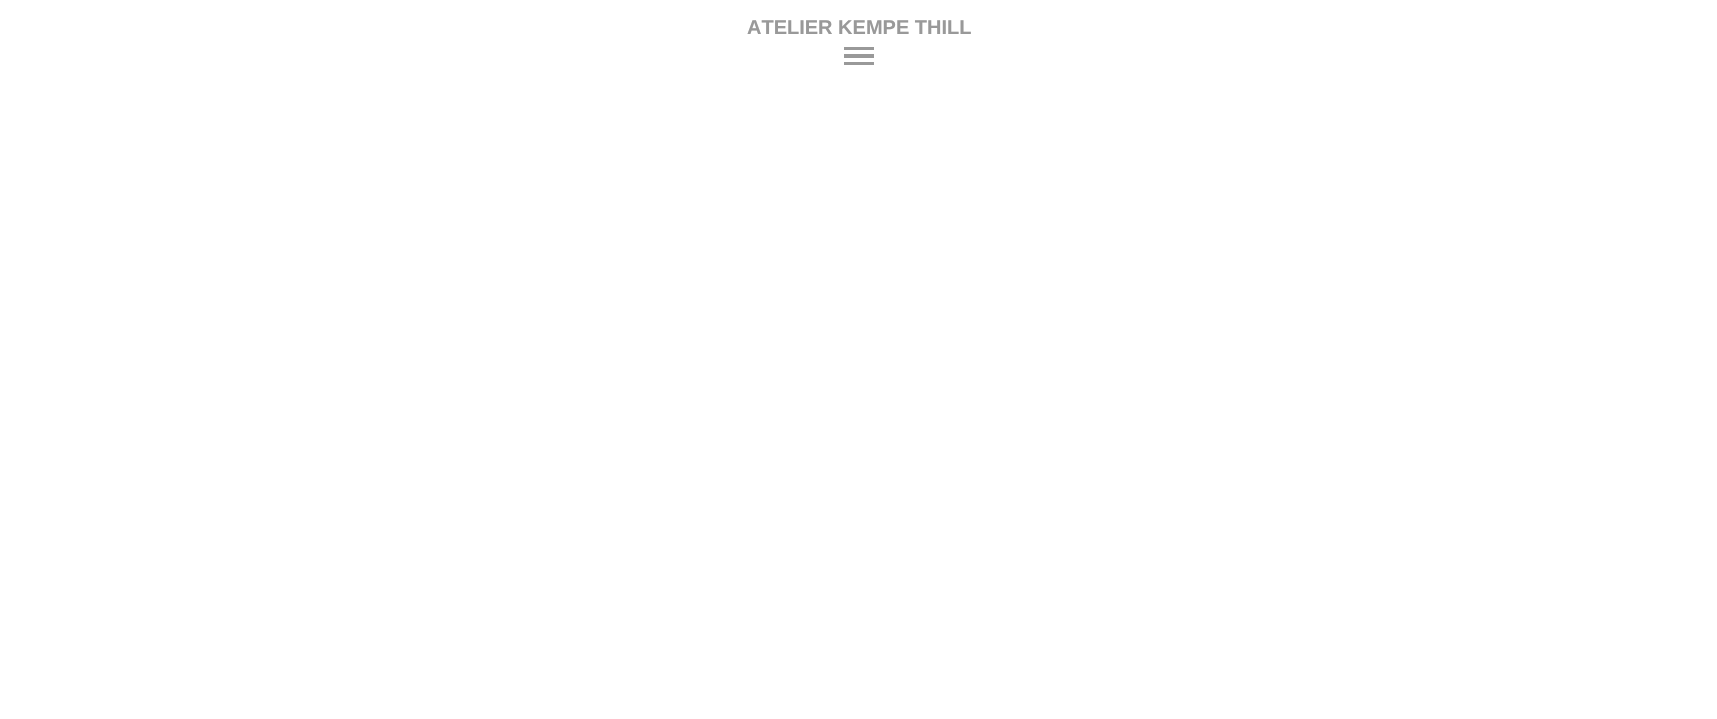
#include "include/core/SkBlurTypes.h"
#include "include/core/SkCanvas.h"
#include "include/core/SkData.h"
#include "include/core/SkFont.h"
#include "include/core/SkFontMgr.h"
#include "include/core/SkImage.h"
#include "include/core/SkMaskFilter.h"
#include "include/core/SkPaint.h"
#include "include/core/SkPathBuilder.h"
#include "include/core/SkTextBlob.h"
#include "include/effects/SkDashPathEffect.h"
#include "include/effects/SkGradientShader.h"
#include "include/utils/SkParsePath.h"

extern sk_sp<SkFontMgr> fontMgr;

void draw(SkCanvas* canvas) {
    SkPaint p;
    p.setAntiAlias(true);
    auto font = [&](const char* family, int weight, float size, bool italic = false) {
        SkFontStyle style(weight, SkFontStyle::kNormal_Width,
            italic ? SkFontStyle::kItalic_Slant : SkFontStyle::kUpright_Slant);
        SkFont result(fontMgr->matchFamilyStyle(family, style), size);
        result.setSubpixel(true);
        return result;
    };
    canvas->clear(0xFFFFFFFF);
    auto font1 = font("Liberation Sans", 700, 20);
    p.setColor(0xFF999999);
    canvas->drawString("ATELIER KEMPE THILL", 747, 34, font1, p);
    {
        const struct { float l, t, r, b; SkColor color; } items[] = {
            {844, 47, 874, 50, 0xFF999999},
            {844, 54, 874, 58, 0xFF999999},
            {844, 62, 874, 65, 0xFF999999},
        };
        for (auto [l, t, r, b, color] : items) {
            p.setColor(color);
            canvas->drawRect(SkRect::MakeLTRB(l, t, r, b), p);
        }
    }
}
